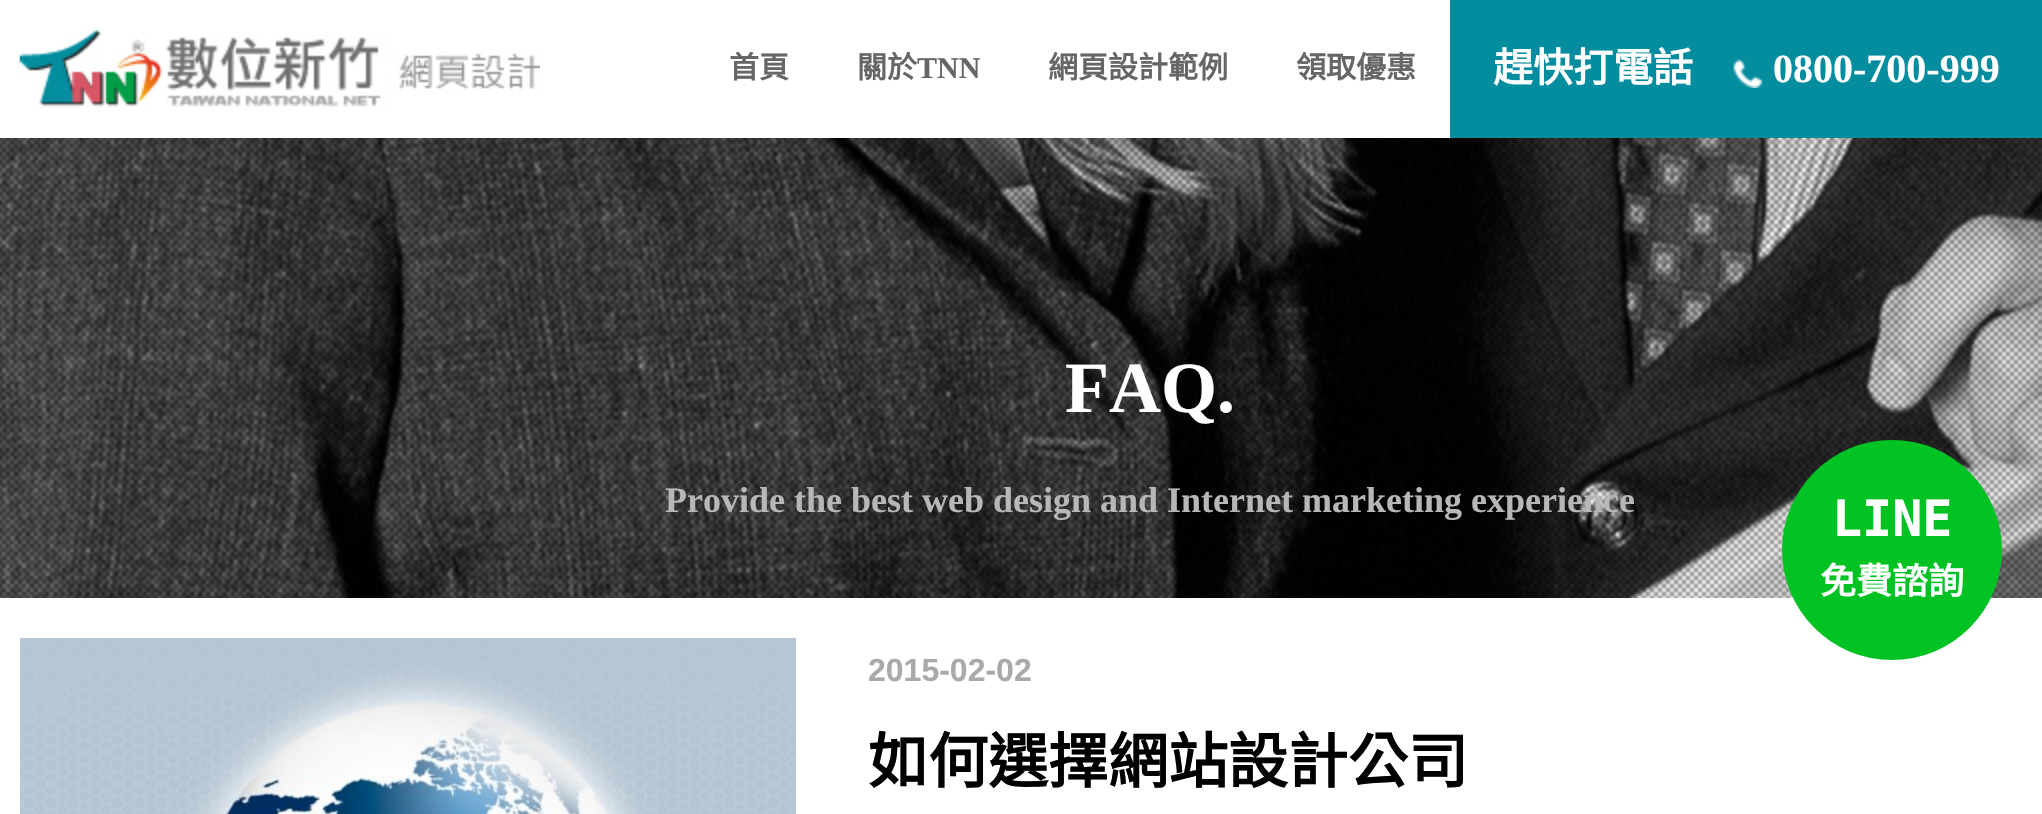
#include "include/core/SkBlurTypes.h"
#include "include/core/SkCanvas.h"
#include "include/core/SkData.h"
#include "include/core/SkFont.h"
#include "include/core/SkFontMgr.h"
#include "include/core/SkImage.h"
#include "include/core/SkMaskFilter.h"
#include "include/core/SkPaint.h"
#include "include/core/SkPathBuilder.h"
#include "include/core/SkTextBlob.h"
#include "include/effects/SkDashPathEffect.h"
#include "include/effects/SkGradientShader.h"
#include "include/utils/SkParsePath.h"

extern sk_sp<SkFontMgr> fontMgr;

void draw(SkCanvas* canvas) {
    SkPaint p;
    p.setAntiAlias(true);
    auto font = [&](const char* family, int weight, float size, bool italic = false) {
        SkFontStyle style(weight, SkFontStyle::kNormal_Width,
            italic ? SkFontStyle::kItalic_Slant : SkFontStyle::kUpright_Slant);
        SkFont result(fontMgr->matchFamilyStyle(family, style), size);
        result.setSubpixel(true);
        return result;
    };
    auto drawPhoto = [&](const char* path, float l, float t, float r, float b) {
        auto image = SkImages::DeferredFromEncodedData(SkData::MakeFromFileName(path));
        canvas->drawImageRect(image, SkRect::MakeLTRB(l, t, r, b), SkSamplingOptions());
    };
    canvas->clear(0xFFFFFFFF);
    drawPhoto("media/1.png", 19, 24, 540, 112);
    drawPhoto("media/2.png", 20, 25, 504, 112);
    auto font1 = font("Noto Sans CJK TC", 700, 30);
    p.setColor(0xFF666666);
    canvas->drawString("首頁", 729, 78, font1, p);
    canvas->drawString("關於", 857, 78, font1, p);
    auto font2 = font("Liberation Serif", 700, 30);
    canvas->drawString("TNN", 917, 78, font2, p);
    canvas->drawString("網頁設計範例", 1048, 78, font1, p);
    canvas->drawString("領取優惠", 1296, 78, font1, p);
    p.setColor(0xFF048D9F);
    canvas->drawRect(SkRect::MakeLTRB(1450, 0, 2042, 138), p);
    auto font3 = font("Noto Sans CJK TC", 700, 40);
    p.setColor(0xFFFFFFFF);
    canvas->drawString("趕快打電話", 1493, 82, font3, p);
    drawPhoto("media/3.png", 1733, 59, 1762, 88);
    auto font4 = font("Liberation Serif", 700, 40);
    canvas->drawString("0800-700-999", 1773, 82, font4, p);
    drawPhoto("media/4.png", 0, 138, 2042, 598);
    auto font5 = font("Liberation Serif", 700, 72);
    canvas->drawString("FAQ.", 1065, 412, font5, p);
    auto font6 = font("Liberation Serif", 700, 36);
    p.setColor(0xFFB8B7B7);
    canvas->drawString("Provide the best web design and Internet marketing experience", 665, 512, font6, p);
    drawPhoto("media/5.png", 20, 638, 796, 814);
    auto font7 = font("Liberation Sans", 700, 32);
    p.setColor(0xFFA9A9AA);
    canvas->drawString("2015-02-02", 868, 681, font7, p);
    auto font8 = font("Noto Sans CJK TC", 700, 60);
    p.setColor(0xFF000000);
    canvas->drawString("如何選擇網站設計公司", 868, 783, font8, p);
    p.setColor(0xFF00C323);
    canvas->drawCircle(1892, 550, 110, p);
    auto font9 = font("DejaVu Sans Mono", 700, 50);
    p.setColor(0xFFFFFFFF);
    canvas->drawString("LINE", 1832, 536, font9, p);
    auto font10 = font("Noto Sans CJK TC", 700, 36);
    canvas->drawString("免費諮詢", 1820, 594, font10, p);
}
